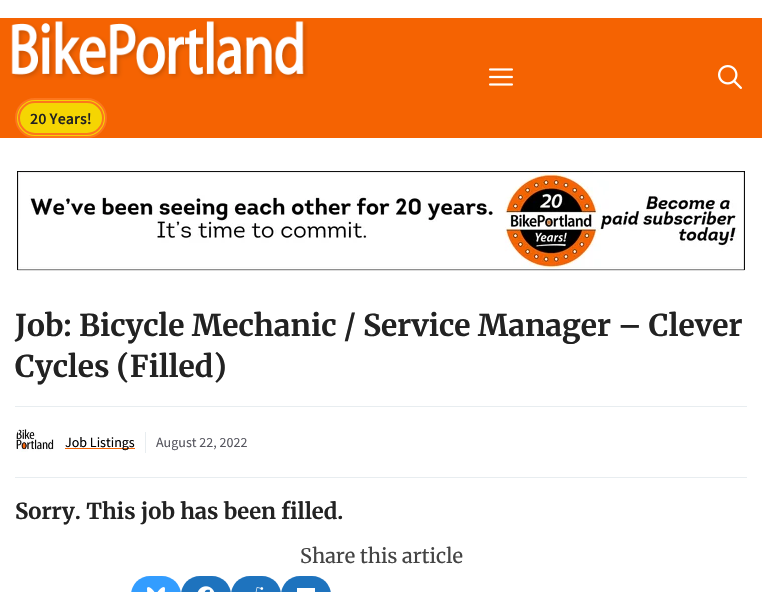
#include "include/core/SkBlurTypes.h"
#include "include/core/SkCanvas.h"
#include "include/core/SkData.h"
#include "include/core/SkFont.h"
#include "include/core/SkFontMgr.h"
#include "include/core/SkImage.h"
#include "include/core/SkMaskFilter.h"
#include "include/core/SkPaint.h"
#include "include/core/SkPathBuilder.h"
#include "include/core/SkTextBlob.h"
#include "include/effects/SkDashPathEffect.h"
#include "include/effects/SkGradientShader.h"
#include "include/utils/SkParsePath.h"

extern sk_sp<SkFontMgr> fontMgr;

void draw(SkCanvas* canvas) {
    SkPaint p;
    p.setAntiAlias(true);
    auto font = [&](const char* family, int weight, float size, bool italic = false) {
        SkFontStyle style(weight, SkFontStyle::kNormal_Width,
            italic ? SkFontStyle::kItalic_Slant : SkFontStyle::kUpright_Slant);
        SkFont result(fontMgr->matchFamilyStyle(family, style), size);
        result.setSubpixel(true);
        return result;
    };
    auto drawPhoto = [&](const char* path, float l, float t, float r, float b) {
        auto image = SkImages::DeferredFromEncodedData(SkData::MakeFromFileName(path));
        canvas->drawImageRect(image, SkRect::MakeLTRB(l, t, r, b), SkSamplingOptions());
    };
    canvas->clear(0xFFFFFFFF);
    p.setColor(0xFFF56302);
    canvas->drawRect(SkRect::MakeLTRB(0, 18, 762, 138), p);
    drawPhoto("media/1.png", 489, 68, 513, 86);
    drawPhoto("media/2.png", 718, 65, 742, 89);
    drawPhoto("media/3.png", 11, 21, 308, 80);
    p.setColor(0xFFF5D502);
    canvas->drawRoundRect(SkRect::MakeLTRB(16, 99, 106, 137), 19, 19, p);
    p.setStyle(SkPaint::kStroke_Style);
    p.setStrokeWidth(2);
    p.setColor(0xFFFD761C);
    canvas->drawRoundRect(SkRect::MakeLTRB(16, 99, 106, 137), 19, 19, p);
    canvas->drawRoundRect(SkRect::MakeLTRB(19, 102, 103, 134), 16, 16, p);
    auto font1 = font("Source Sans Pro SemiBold", 600, 16);
    p.setStyle(SkPaint::kFill_Style);
    p.setColor(0xFF222222);
    canvas->drawString("20 Years!", 30, 124, font1, p);
    drawPhoto("media/4.png", 17, 171, 745, 271);
    auto font2 = font("Merriweather", 700, 30);
    canvas->drawString("Job: Bicycle Mechanic / Service Manager – Clever", 15, 336, font2, p);
    canvas->drawString("Cycles (Filled)", 15, 377, font2, p);
    p.setColor(0xFFE8EDF0);
    canvas->drawRect(SkRect::MakeLTRB(15, 406, 747, 407), p);
    canvas->drawRect(SkRect::MakeLTRB(15, 477, 747, 478), p);
    drawPhoto("media/5.png", 16, 429, 54, 452);
    p.setColor(0xFFF56302);
    canvas->drawRect(SkRect::MakeLTRB(65, 448, 135, 449), p);
    auto font3 = font("Source Sans Pro", 400, 14);
    p.setColor(0xFF020000);
    canvas->drawString("Job Listings", 65, 447, font3, p);
    p.setColor(0xFFE8EDF0);
    canvas->drawRect(SkRect::MakeLTRB(145, 432, 146, 453), p);
    p.setColor(0xFF575760);
    canvas->drawString("August 22, 2022", 156, 447, font3, p);
    auto font4 = font("Merriweather", 700, 22);
    p.setColor(0xFF222222);
    canvas->drawString("Sorry. This job has been filled.", 15, 519, font4, p);
    auto font5 = font("Merriweather", 400, 20);
    p.setColor(0xFF444444);
    canvas->drawString("Share this article", 300, 563, font5, p);
    p.setColor(0xFF339DFF);
    canvas->drawRoundRect(SkRect::MakeLTRB(131, 576, 181, 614), 21.5f, 21.5f, p);
    drawPhoto("media/6.png", 147, 587, 165, 592);
    p.setColor(0xFF1E73BE);
    canvas->drawRoundRect(SkRect::MakeLTRB(181, 576, 231, 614), 21.5f, 21.5f, p);
    drawPhoto("media/7.png", 197, 586, 215, 592);
    canvas->drawRoundRect(SkRect::MakeLTRB(231, 576, 281, 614), 21.5f, 21.5f, p);
    drawPhoto("media/8.png", 255, 587, 264, 592);
    canvas->drawRoundRect(SkRect::MakeLTRB(281, 576, 331, 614), 21.5f, 21.5f, p);
    p.setColor(0xFFFFFFFF);
    canvas->drawRect(SkRect::MakeLTRB(297, 588, 315, 592), p);
}
